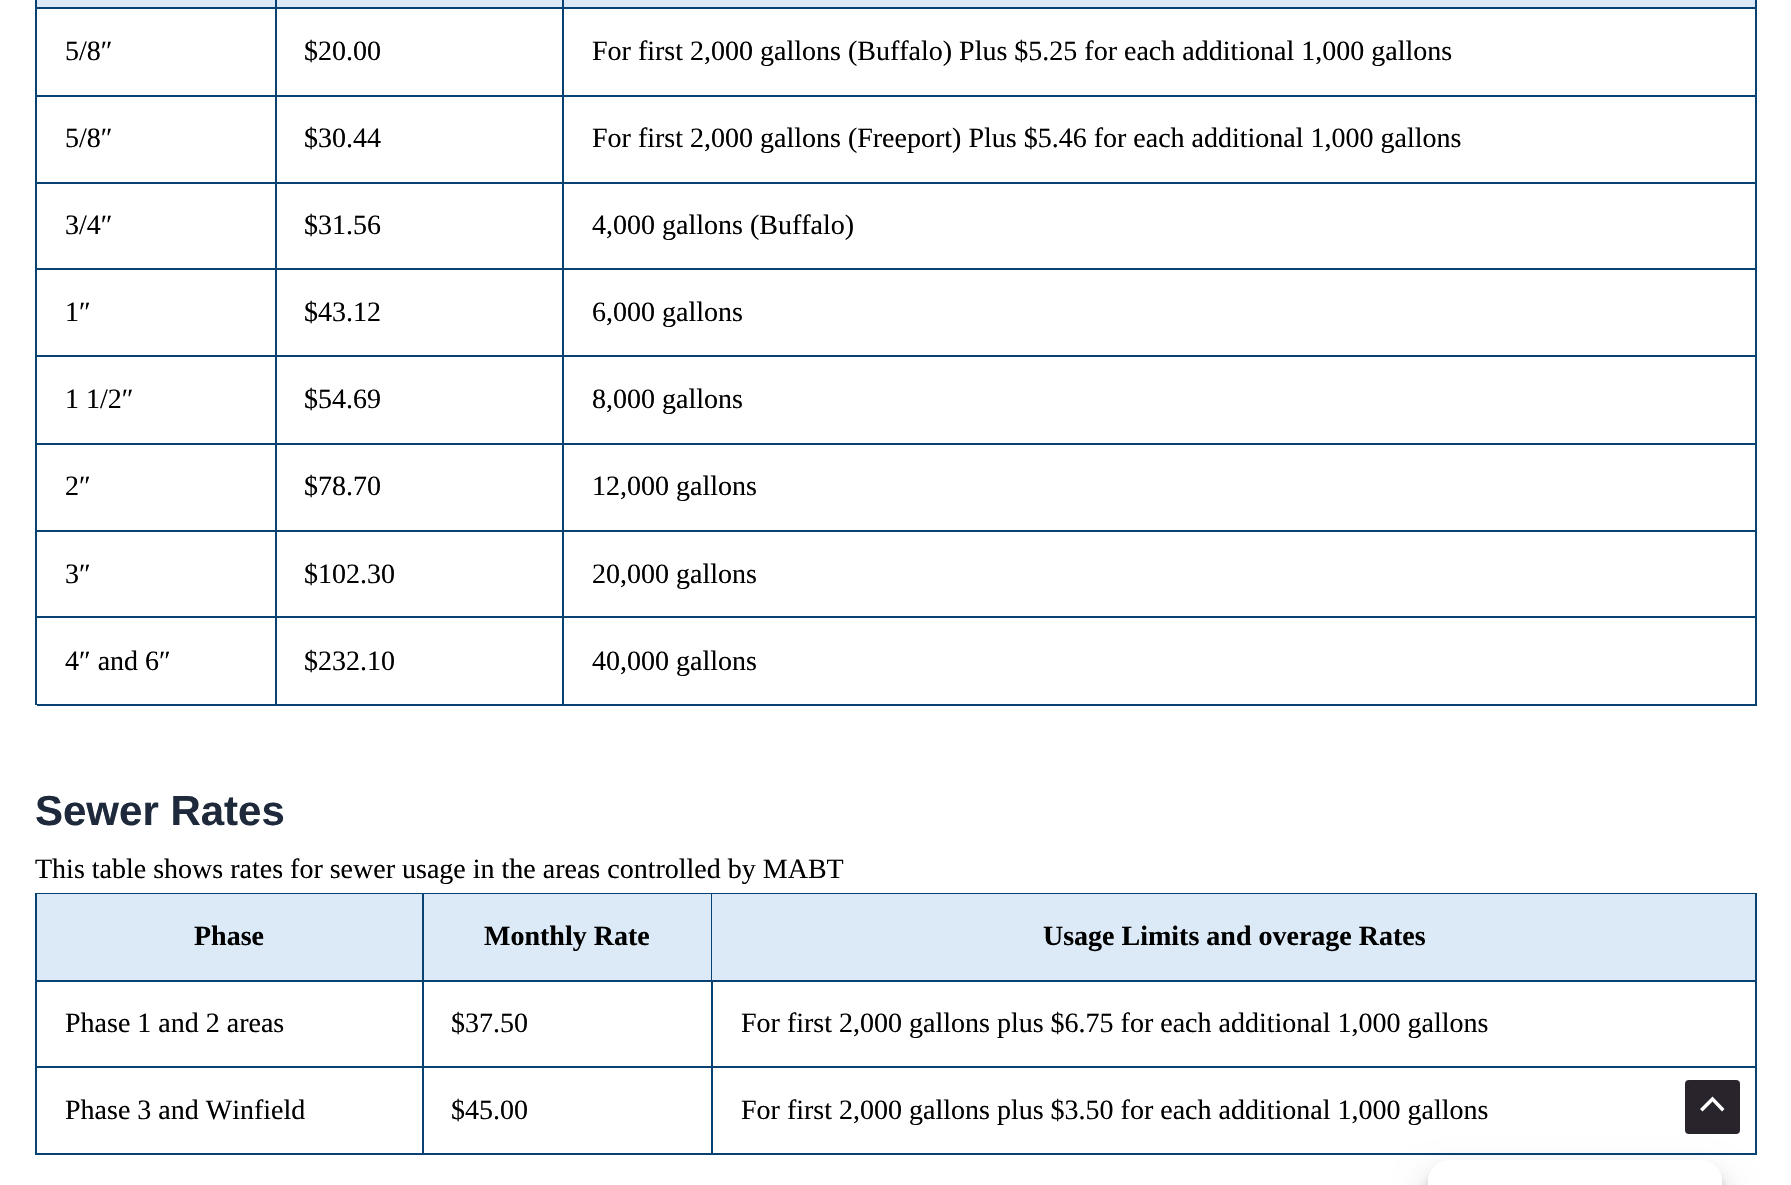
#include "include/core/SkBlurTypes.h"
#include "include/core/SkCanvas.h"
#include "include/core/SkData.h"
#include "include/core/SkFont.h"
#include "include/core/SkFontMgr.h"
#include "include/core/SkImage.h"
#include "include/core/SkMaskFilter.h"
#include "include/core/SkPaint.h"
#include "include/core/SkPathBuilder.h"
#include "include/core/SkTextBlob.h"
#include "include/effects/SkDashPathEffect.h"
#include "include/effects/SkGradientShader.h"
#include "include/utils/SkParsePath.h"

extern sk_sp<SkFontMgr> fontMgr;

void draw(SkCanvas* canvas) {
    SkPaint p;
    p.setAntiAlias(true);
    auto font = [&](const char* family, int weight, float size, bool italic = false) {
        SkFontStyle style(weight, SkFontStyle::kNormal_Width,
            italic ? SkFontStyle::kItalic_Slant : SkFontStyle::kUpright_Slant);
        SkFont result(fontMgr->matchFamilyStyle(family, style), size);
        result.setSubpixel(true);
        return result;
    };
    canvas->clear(0xFFFFFFFF);
    {
        const struct { float l, t, r, b; SkColor color; } items[] = {
            {35, 0, 37, 705, 0xFF084272},
            {37, 0, 275, 7, 0xFFDCEAF7},
            {275, 0, 277, 96, 0xFF084272},
            {37, 7, 277, 9, 0xFF084272},
            {277, 0, 562, 7, 0xFFDCEAF7},
            {562, 0, 564, 96, 0xFF084272},
            {277, 7, 564, 9, 0xFF084272},
            {564, 0, 1755, 7, 0xFFDCEAF7},
            {1755, 0, 1757, 96, 0xFF084272},
            {564, 7, 1757, 9, 0xFF084272},
            {37, 95, 1757, 97, 0xFF084272},
        };
        for (auto [l, t, r, b, color] : items) {
            p.setColor(color);
            canvas->drawRect(SkRect::MakeLTRB(l, t, r, b), p);
        }
    }
    auto font1 = font("Liberation Serif", 400, 28);
    p.setColor(0xFF000000);
    {
        const struct { const char* s; float x, y; } items[] = {
            {"5/8″", 65, 60},
            {"$20.00", 304, 60},
            {"For first 2,000 gallons (Buffalo) Plus $5.25 for each additional 1,000 gallons", 592, 60},
        };
        for (auto [s, x, y] : items) {
            canvas->drawString(s, x, y, font1, p);
        }
    }
    p.setColor(0xFF084272);
    canvas->drawRect(SkRect::MakeLTRB(275, 96, 277, 705), p);
    canvas->drawRect(SkRect::MakeLTRB(37, 182, 277, 184), p);
    p.setColor(0xFF000000);
    canvas->drawString("5/8″", 65, 147, font1, p);
    p.setColor(0xFF084272);
    canvas->drawRect(SkRect::MakeLTRB(562, 96, 564, 705), p);
    canvas->drawRect(SkRect::MakeLTRB(277, 182, 564, 184), p);
    p.setColor(0xFF000000);
    canvas->drawString("$30.44", 304, 147, font1, p);
    p.setColor(0xFF084272);
    canvas->drawRect(SkRect::MakeLTRB(1755, 96, 1757, 705), p);
    canvas->drawRect(SkRect::MakeLTRB(564, 182, 1757, 184), p);
    p.setColor(0xFF000000);
    canvas->drawString("For first 2,000 gallons (Freeport) Plus $5.46 for each additional 1,000 gallons", 592, 147, font1, p);
    p.setColor(0xFF084272);
    canvas->drawRect(SkRect::MakeLTRB(37, 268, 1757, 270), p);
    p.setColor(0xFF000000);
    {
        const struct { const char* s; float x, y; } items[] = {
            {"3/4″", 65, 234},
            {"$31.56", 304, 234},
            {"4,000 gallons (Buffalo)", 592, 234},
        };
        for (auto [s, x, y] : items) {
            canvas->drawString(s, x, y, font1, p);
        }
    }
    p.setColor(0xFF084272);
    canvas->drawRect(SkRect::MakeLTRB(37, 355, 1757, 357), p);
    p.setColor(0xFF000000);
    {
        const struct { const char* s; float x, y; } items[] = {
            {"1″", 65, 321},
            {"$43.12", 304, 321},
            {"6,000 gallons", 592, 321},
        };
        for (auto [s, x, y] : items) {
            canvas->drawString(s, x, y, font1, p);
        }
    }
    p.setColor(0xFF084272);
    canvas->drawRect(SkRect::MakeLTRB(37, 443, 1757, 445), p);
    p.setColor(0xFF000000);
    {
        const struct { const char* s; float x, y; } items[] = {
            {"1 1/2″", 65, 408},
            {"$54.69", 304, 408},
            {"8,000 gallons", 592, 408},
        };
        for (auto [s, x, y] : items) {
            canvas->drawString(s, x, y, font1, p);
        }
    }
    p.setColor(0xFF084272);
    canvas->drawRect(SkRect::MakeLTRB(37, 530, 1757, 532), p);
    p.setColor(0xFF000000);
    {
        const struct { const char* s; float x, y; } items[] = {
            {"2″", 65, 495},
            {"$78.70", 304, 495},
            {"12,000 gallons", 592, 495},
        };
        for (auto [s, x, y] : items) {
            canvas->drawString(s, x, y, font1, p);
        }
    }
    p.setColor(0xFF084272);
    canvas->drawRect(SkRect::MakeLTRB(37, 616, 1757, 618), p);
    p.setColor(0xFF000000);
    {
        const struct { const char* s; float x, y; } items[] = {
            {"3″", 65, 583},
            {"$102.30", 304, 583},
            {"20,000 gallons", 592, 583},
        };
        for (auto [s, x, y] : items) {
            canvas->drawString(s, x, y, font1, p);
        }
    }
    p.setColor(0xFF084272);
    canvas->drawRect(SkRect::MakeLTRB(37, 704, 1757, 706), p);
    p.setColor(0xFF000000);
    {
        const struct { const char* s; float x, y; } items[] = {
            {"4″ and 6″", 65, 670},
            {"$232.10", 304, 670},
            {"40,000 gallons", 592, 670},
        };
        for (auto [s, x, y] : items) {
            canvas->drawString(s, x, y, font1, p);
        }
    }
    auto font2 = font("Liberation Sans", 700, 42);
    p.setColor(0xFF1E293B);
    canvas->drawString("Sewer Rates", 35, 825, font2, p);
    p.setColor(0xFF000000);
    canvas->drawString("This table shows rates for sewer usage in the areas controlled by MABT", 35, 878, font1, p);
    {
        const struct { float l, t, r, b; SkColor color; } items[] = {
            {35, 893, 1757, 894, 0xFF084272},
            {35, 893, 37, 1155, 0xFF084272},
            {37, 894, 422, 980, 0xFFDCEAF7},
            {422, 894, 424, 1155, 0xFF084272},
            {37, 980, 424, 982, 0xFF084272},
        };
        for (auto [l, t, r, b, color] : items) {
            p.setColor(color);
            canvas->drawRect(SkRect::MakeLTRB(l, t, r, b), p);
        }
    }
    auto font3 = font("Liberation Serif", 700, 28);
    p.setColor(0xFF000000);
    canvas->drawString("Phase", 194, 945, font3, p);
    {
        const struct { float l, t, r, b; SkColor color; } items[] = {
            {424, 894, 711, 980, 0xFFDCEAF7},
            {711, 894, 712, 982, 0xFF084272},
            {424, 980, 712, 982, 0xFF084272},
        };
        for (auto [l, t, r, b, color] : items) {
            p.setColor(color);
            canvas->drawRect(SkRect::MakeLTRB(l, t, r, b), p);
        }
    }
    p.setColor(0xFF000000);
    canvas->drawString("Monthly Rate", 484, 945, font3, p);
    {
        const struct { float l, t, r, b; SkColor color; } items[] = {
            {712, 894, 1755, 980, 0xFFDCEAF7},
            {1755, 894, 1757, 1155, 0xFF084272},
            {712, 980, 1757, 982, 0xFF084272},
        };
        for (auto [l, t, r, b, color] : items) {
            p.setColor(color);
            canvas->drawRect(SkRect::MakeLTRB(l, t, r, b), p);
        }
    }
    p.setColor(0xFF000000);
    canvas->drawString("Usage Limits and overage Rates", 1043, 945, font3, p);
    p.setColor(0xFF084272);
    canvas->drawRect(SkRect::MakeLTRB(37, 1066, 424, 1068), p);
    p.setColor(0xFF000000);
    canvas->drawString("Phase 1 and 2 areas", 65, 1032, font1, p);
    p.setColor(0xFF084272);
    canvas->drawRect(SkRect::MakeLTRB(711, 982, 713, 1155), p);
    canvas->drawRect(SkRect::MakeLTRB(424, 1066, 1757, 1068), p);
    p.setColor(0xFF000000);
    canvas->drawString("$37.50", 451, 1032, font1, p);
    canvas->drawString("For first 2,000 gallons plus $6.75 for each additional 1,000 gallons", 741, 1032, font1, p);
    p.setColor(0xFF084272);
    canvas->drawRect(SkRect::MakeLTRB(37, 1153, 1757, 1155), p);
    p.setColor(0xFF000000);
    {
        const struct { const char* s; float x, y; } items[] = {
            {"Phase 3 and Winfield", 65, 1119},
            {"$45.00", 451, 1119},
            {"For first 2,000 gallons plus $3.50 for each additional 1,000 gallons", 741, 1119},
        };
        for (auto [s, x, y] : items) {
            canvas->drawString(s, x, y, font1, p);
        }
    }
    p.setColor(0xFF29242B);
    canvas->drawRoundRect(SkRect::MakeLTRB(1685, 1080, 1740, 1134), 4, 4, p);
    p.setColor(0xFFFFFFFF);
    canvas->drawPath(SkPathBuilder().moveTo(1724.5f, 1109).lineTo(1712.5f, 1096.5f).lineTo(1700, 1109).lineTo(1702.5f, 1111.5f).lineTo(1712.5f, 1101.5f).lineTo(1722, 1111.5f).close().detach(), p);
    p.setColor(0x3B000000);
    p.setMaskFilter(SkMaskFilter::MakeBlur(kNormal_SkBlurStyle, 5));
    canvas->drawRoundRect(SkRect::MakeLTRB(1428, 1171, 1722, 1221), 21, 21, p);
    p.setMaskFilter(nullptr);
    p.setColor(0x30000000);
    p.setMaskFilter(SkMaskFilter::MakeBlur(kNormal_SkBlurStyle, 17.5f));
    canvas->drawRoundRect(SkRect::MakeLTRB(1428, 1178, 1722, 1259), 21, 21, p);
    p.setMaskFilter(nullptr);
    p.setColor(0xFFFFFFFF);
    canvas->drawPath(SkPathBuilder().moveTo(1449, 1160).lineTo(1701, 1160).cubicTo(1712.5f, 1160, 1722, 1169.5f, 1722, 1181).lineTo(1722, 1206).lineTo(1428, 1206).lineTo(1428, 1181).cubicTo(1428, 1169.5f, 1437.5f, 1160, 1449, 1160).close().detach(), p);
}
